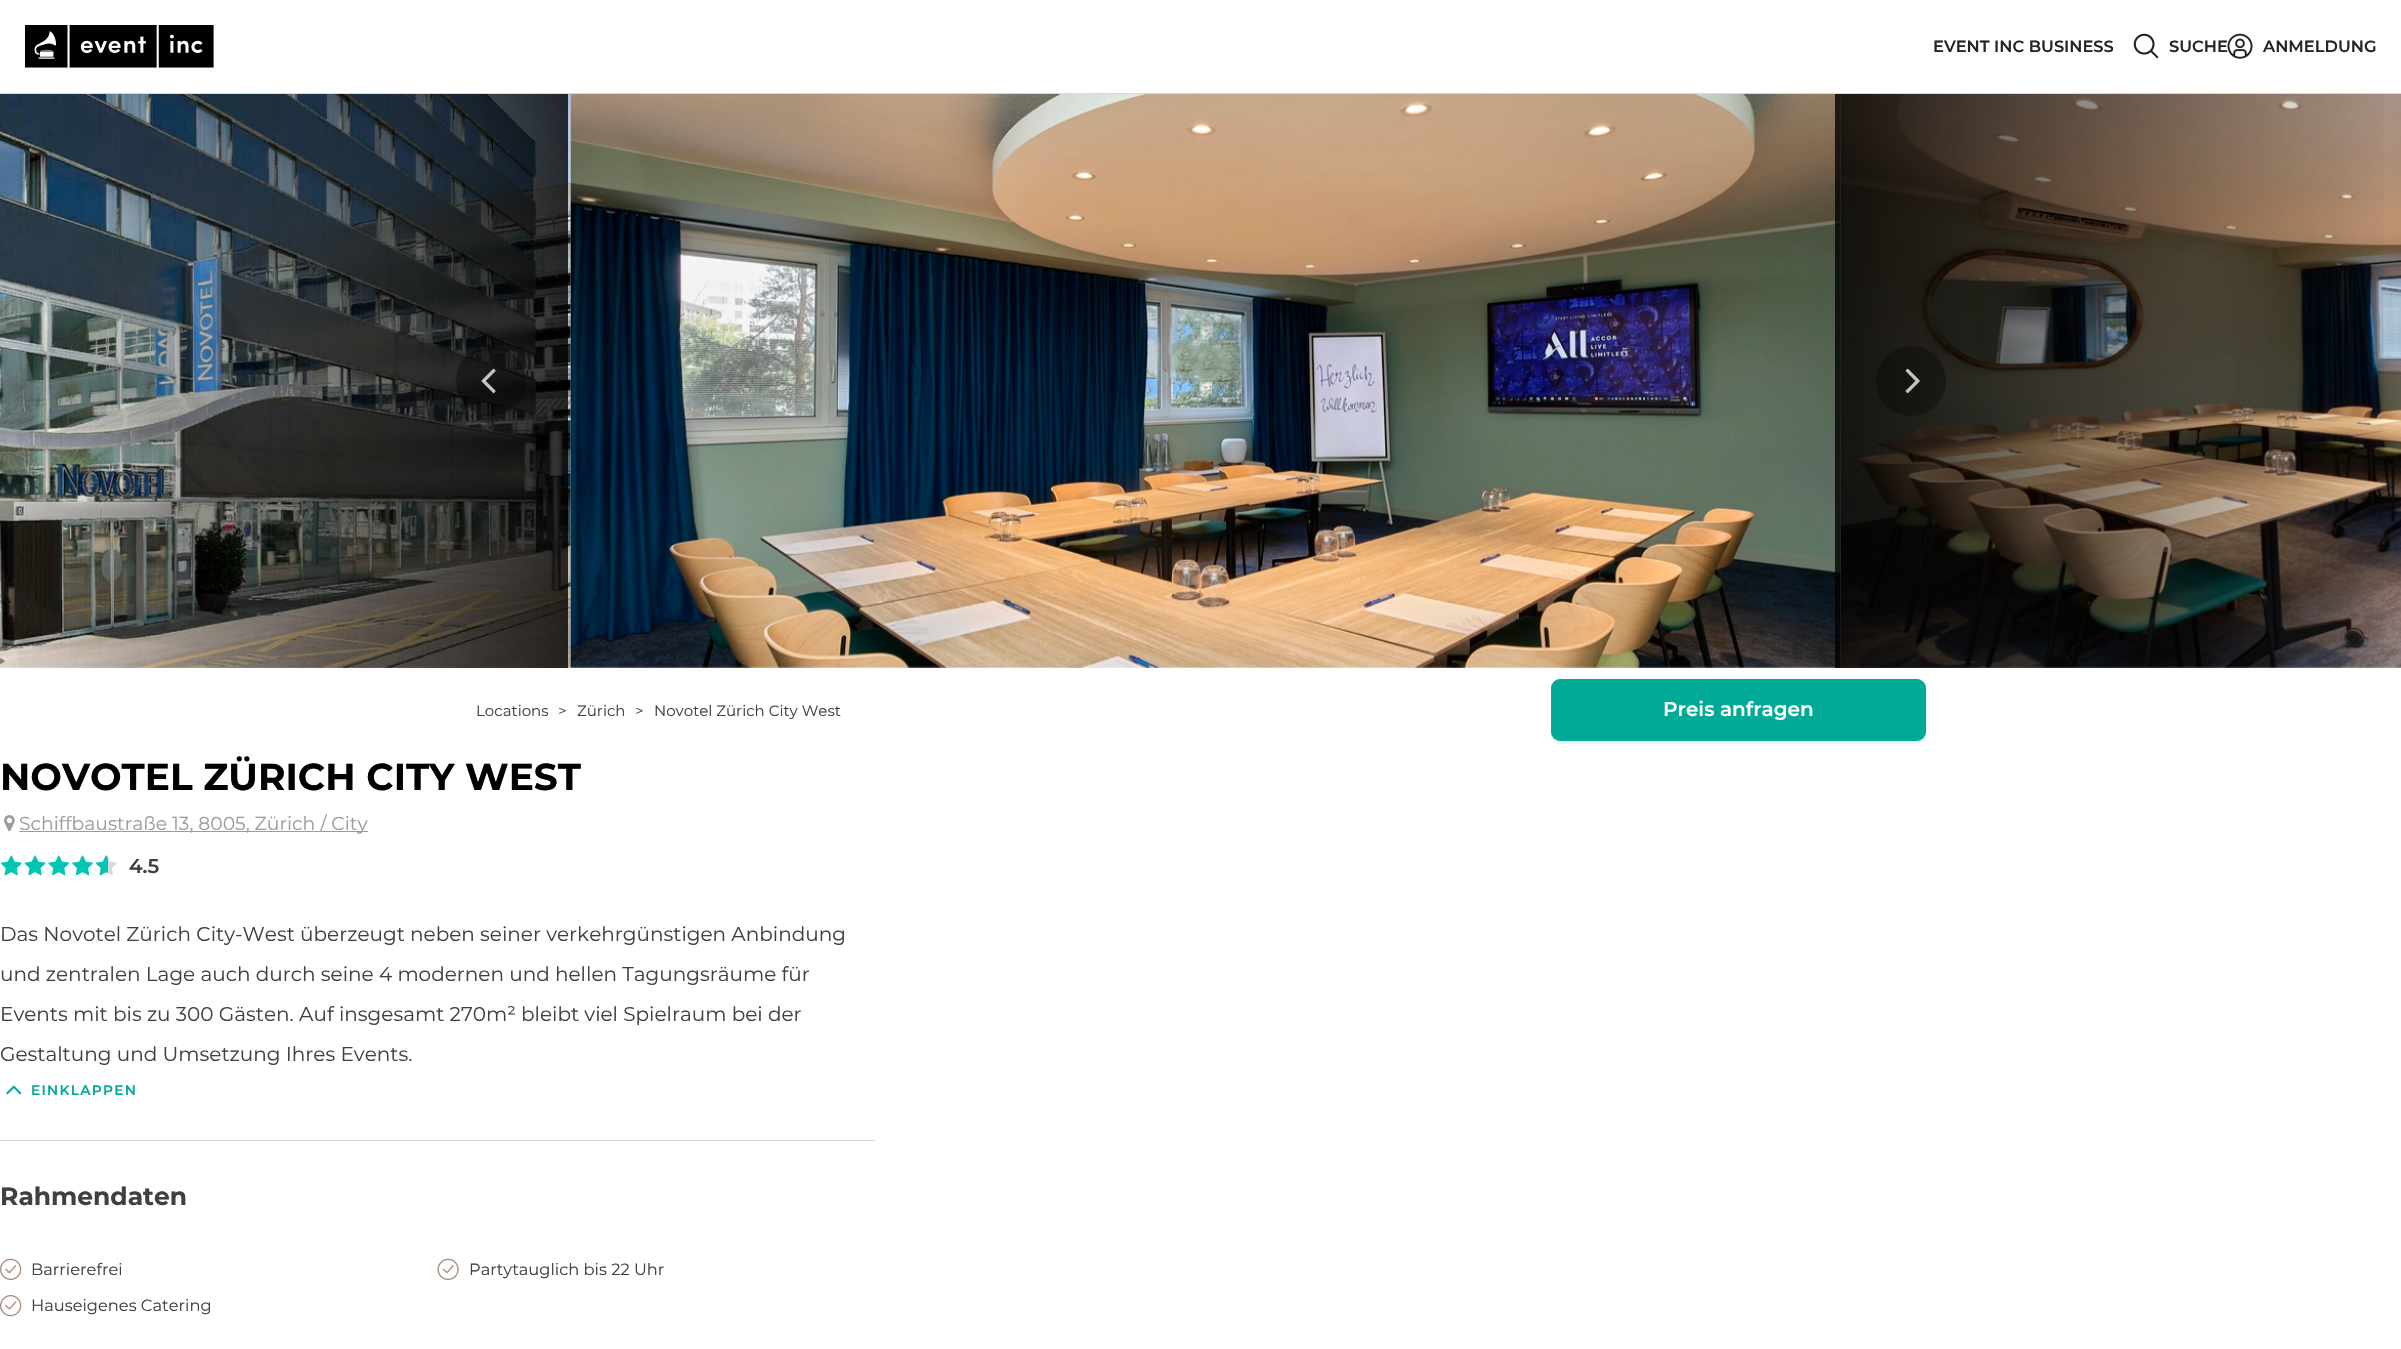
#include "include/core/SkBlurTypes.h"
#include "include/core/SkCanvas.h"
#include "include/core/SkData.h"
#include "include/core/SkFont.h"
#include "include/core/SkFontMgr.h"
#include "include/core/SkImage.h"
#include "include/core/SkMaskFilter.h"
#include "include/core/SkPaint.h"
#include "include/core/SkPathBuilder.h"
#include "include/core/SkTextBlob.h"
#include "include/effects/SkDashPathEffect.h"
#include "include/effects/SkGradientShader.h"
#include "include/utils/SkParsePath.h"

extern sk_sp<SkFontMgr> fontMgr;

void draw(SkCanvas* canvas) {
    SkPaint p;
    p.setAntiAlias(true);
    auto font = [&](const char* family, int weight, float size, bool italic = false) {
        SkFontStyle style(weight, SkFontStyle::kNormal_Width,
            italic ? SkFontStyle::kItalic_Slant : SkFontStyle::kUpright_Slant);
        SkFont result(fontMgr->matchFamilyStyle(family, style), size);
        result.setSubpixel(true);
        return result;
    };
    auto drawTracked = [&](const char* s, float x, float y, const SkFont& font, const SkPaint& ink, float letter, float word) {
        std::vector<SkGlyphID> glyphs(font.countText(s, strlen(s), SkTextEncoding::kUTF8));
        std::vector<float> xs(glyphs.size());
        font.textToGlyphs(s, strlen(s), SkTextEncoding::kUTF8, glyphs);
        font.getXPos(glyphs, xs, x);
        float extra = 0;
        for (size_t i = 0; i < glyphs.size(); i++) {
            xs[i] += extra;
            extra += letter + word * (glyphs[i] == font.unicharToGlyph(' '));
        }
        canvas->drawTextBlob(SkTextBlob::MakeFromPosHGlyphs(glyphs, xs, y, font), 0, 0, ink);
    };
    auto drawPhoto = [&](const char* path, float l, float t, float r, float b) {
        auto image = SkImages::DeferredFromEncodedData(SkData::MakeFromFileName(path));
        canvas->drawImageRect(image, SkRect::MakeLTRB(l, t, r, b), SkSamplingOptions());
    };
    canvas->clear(0xFFFFFFFF);
    p.setColor(0xFFD9D9D9);
    canvas->drawRect(SkRect::MakeLTRB(0, 93, 2401, 94), p);
    drawPhoto("media/1.png", 25, 25, 214, 68);
    auto font1 = font("Montserrat", 600, 16.25f);
    p.setColor(0xFF242424);
    canvas->drawString("EVENT INC BUSINESS", 1933, 52, font1, p);
    drawPhoto("media/2.png", 2133, 33, 2159, 59);
    canvas->drawString("SUCHE", 2169, 52, font1, p);
    drawPhoto("media/3.png", 2227, 33, 2253, 59);
    canvas->drawString("ANMELDUNG", 2263, 52, font1, p);
    drawPhoto("media/4.png", 0, 94, 571, 668);
    drawPhoto("media/5.png", 570, 94, 1841, 668);
    drawPhoto("media/6.png", 1841, 94, 2401, 668);
    {
        const SkColor colors[] = {0xCC000000, 0x00000000};
        const float stops[] = {0, 1};
        const SkPoint ends[] = {{568, 381}, {2.5f, 381}};
        p.setShader(SkGradientShader::MakeLinear(ends, colors, stops, 2, SkTileMode::kClamp));
        p.setAlpha(255);
    }
    canvas->drawRect(SkRect::MakeLTRB(18, 94, 568, 668), p);
    p.setShader(nullptr);
    p.setColor(0x59000000);
    canvas->drawCircle(491, 381, 35, p);
    drawPhoto("media/7.png", 481, 368, 496, 394);
    {
        const SkColor colors[] = {0xCC000000, 0x00000000};
        const float stops[] = {0, 1};
        const SkPoint ends[] = {{1835, 381}, {2399, 381}};
        p.setShader(SkGradientShader::MakeLinear(ends, colors, stops, 2, SkTileMode::kClamp));
        p.setAlpha(255);
    }
    canvas->drawRect(SkRect::MakeLTRB(1835, 94, 2384, 668), p);
    p.setShader(nullptr);
    p.setColor(0x59000000);
    canvas->drawCircle(1911, 381, 35, p);
    drawPhoto("media/8.png", 1905, 368, 1920, 394);
    auto font2 = font("Montserrat", 400, 15);
    p.setColor(0xFF404040);
    {
        const struct { const char* s; float x, y; } items[] = {
            {"Locations", 476, 716},
            {">", 558, 716},
            {"Zürich", 577, 716},
            {">", 635, 716},
            {"Novotel Zürich City West", 654, 716},
        };
        for (auto [s, x, y] : items) {
            canvas->drawString(s, x, y, font2, p);
        }
    }
    p.setColor(0xFFF4F4F4);
    canvas->drawPath(SkPathBuilder().moveTo(1551, 688).lineTo(1551, 720).cubicTo(1551, 727, 1548, 744, 1560, 744).lineTo(1917, 744).cubicTo(1922, 744, 1926, 740, 1926, 735).cubicTo(1925, 738, 1922, 741, 1918, 741).lineTo(1560, 741).cubicTo(1555, 741, 1551, 737, 1551, 732).close().detach(), p);
    p.setColor(0xFF00AA96);
    canvas->drawRoundRect(SkRect::MakeLTRB(1551.5f, 679.5f, 1925.5f, 740.5f), 8.5f, 8.5f, p);
    p.setStyle(SkPaint::kStroke_Style);
    p.setStrokeWidth(1);
    canvas->drawRoundRect(SkRect::MakeLTRB(1551.5f, 679.5f, 1925.5f, 740.5f), 8.5f, 8.5f, p);
    auto font3 = font("Montserrat", 600, 20);
    p.setStyle(SkPaint::kFill_Style);
    p.setColor(0xFFFFFFFF);
    canvas->drawString("Preis anfragen", 1663, 716, font3, p);
    auto font4 = font("Montserrat", 700, 37.5f);
    p.setColor(0xFF000000);
    canvas->drawString("NOVOTEL ZÜRICH CITY WEST", 0, 790, font4, p);
    drawPhoto("media/9.png", 4, 815, 15, 832);
    p.setColor(0xFF9B9B9B);
    canvas->drawRect(SkRect::MakeLTRB(19, 831, 368, 832), p);
    auto font5 = font("Montserrat", 400, 18.75f);
    canvas->drawString("Schiffbaustraße 13, 8005, Zürich / City", 19, 830, font5, p);
    drawPhoto("media/10.png", 0, 855, 22, 876);
    drawPhoto("media/11.png", 24, 855, 46, 876);
    drawPhoto("media/12.png", 48, 855, 70, 876);
    drawPhoto("media/13.png", 72, 855, 93, 876);
    drawPhoto("media/15.png", 96, 855, 117, 876);
    drawPhoto("media/14.png", 95, 855, 108, 876);
    p.setColor(0xFF404040);
    canvas->drawString("4.5", 129, 873, font3, p);
    auto font6 = font("Montserrat", 400, 20);
    {
        const struct { const char* s; float x, y; } items[] = {
            {"Das Novotel Zürich City-West überzeugt neben seiner verkehrgünstigen Anbindung", 0, 941},
            {"und zentralen Lage auch durch seine 4 modernen und hellen Tagungsräume für", 0, 981},
            {"Events mit bis zu 300 Gästen. Auf insgesamt 270m² bleibt viel Spielraum bei der", 0, 1021},
            {"Gestaltung und Umsetzung Ihres Events.", 0, 1061},
        };
        for (auto [s, x, y] : items) {
            canvas->drawString(s, x, y, font6, p);
        }
    }
    drawPhoto("media/16.png", 6, 1085, 22, 1095);
    auto font7 = font("Montserrat", 600, 13.75f);
    p.setColor(0xFF00AA96);
    drawTracked("EINKLAPPEN", 31, 1095, font7, p, 1.25f, 0);
    p.setColor(0xFFD8D8D8);
    canvas->drawRect(SkRect::MakeLTRB(0, 1140, 875, 1141), p);
    auto font8 = font("Montserrat", 700, 25);
    p.setColor(0xFF404040);
    canvas->drawString("Rahmendaten", 0, 1205, font8, p);
    drawPhoto("media/17.png", 0, 1258, 22, 1280);
    auto font9 = font("Montserrat", 400, 16.25f);
    canvas->drawString("Barrierefrei", 31, 1275, font9, p);
    drawPhoto("media/18.png", 437, 1258, 459, 1280);
    canvas->drawString("Partytauglich bis 22 Uhr", 469, 1275, font9, p);
    drawPhoto("media/19.png", 0, 1295, 22, 1317);
    canvas->drawString("Hauseigenes Catering", 31, 1311, font9, p);
}
